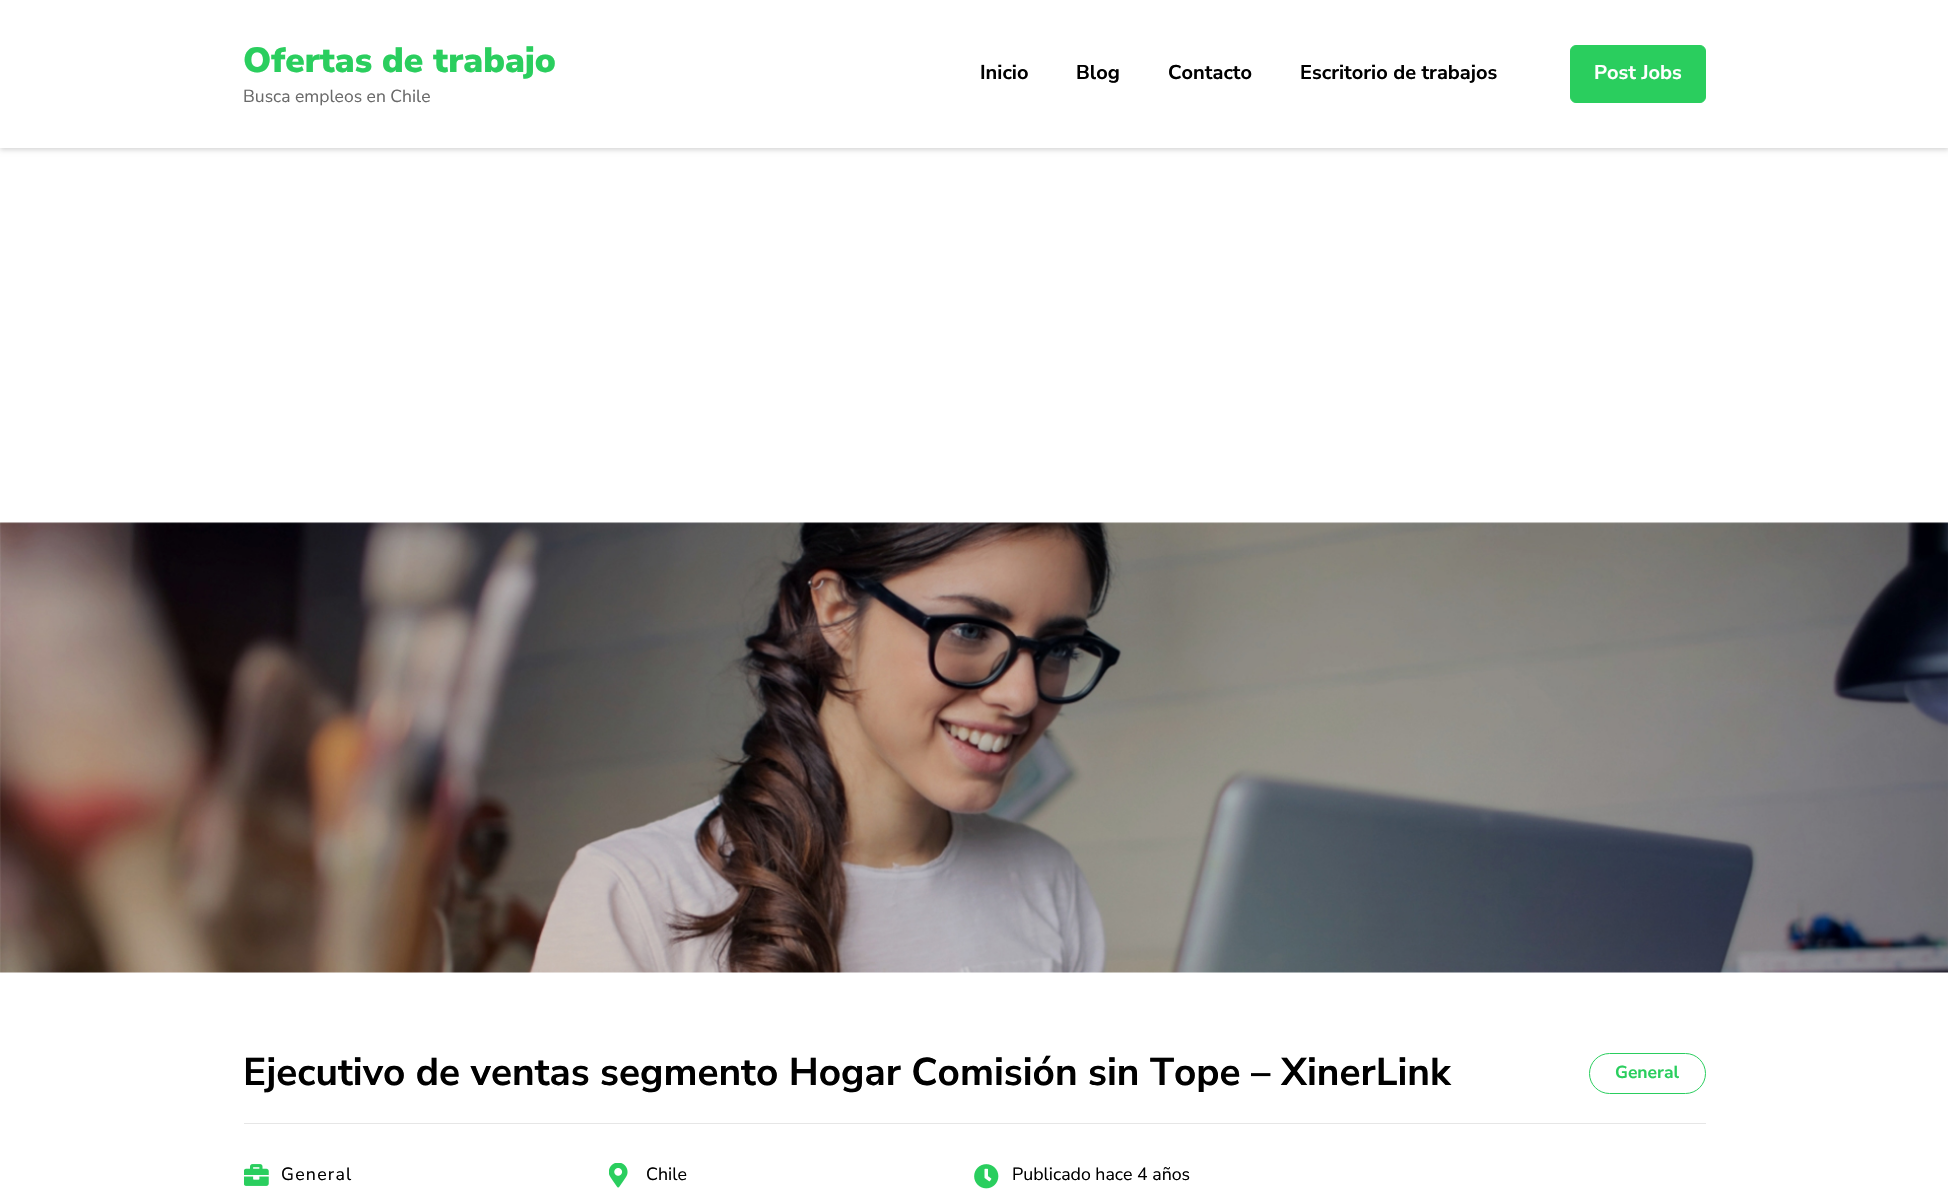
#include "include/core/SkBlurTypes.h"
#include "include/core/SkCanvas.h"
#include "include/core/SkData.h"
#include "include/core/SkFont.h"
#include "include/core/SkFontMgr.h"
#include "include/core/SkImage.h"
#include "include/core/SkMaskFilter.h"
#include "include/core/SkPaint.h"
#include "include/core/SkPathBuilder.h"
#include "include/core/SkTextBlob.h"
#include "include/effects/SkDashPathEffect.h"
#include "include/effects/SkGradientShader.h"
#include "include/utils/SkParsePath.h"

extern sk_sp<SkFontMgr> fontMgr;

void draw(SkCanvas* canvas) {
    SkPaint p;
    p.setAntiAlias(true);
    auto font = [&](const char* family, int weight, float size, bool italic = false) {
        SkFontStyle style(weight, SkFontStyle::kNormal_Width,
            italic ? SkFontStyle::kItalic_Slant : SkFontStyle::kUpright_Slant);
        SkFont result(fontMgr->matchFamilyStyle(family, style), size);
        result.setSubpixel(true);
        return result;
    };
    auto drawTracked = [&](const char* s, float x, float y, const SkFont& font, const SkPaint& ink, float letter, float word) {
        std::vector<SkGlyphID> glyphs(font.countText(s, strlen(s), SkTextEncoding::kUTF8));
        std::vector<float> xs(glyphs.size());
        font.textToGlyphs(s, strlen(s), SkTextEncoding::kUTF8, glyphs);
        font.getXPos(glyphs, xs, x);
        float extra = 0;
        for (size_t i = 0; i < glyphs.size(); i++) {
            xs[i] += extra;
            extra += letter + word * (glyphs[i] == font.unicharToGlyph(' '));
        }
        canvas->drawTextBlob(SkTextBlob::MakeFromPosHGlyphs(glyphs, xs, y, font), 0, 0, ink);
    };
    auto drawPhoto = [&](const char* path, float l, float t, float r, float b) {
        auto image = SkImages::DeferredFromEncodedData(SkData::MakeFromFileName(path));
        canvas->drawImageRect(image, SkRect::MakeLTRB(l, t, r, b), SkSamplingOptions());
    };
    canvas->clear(0xFFFFFFFF);
    canvas->save();
    canvas->clipPath(SkPathBuilder(SkPathFillType::kEvenOdd).moveTo(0, 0).lineTo(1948, 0).lineTo(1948, 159).lineTo(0, 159).close().moveTo(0, 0).lineTo(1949, 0).lineTo(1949, 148).lineTo(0, 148).close().detach(), true);
    p.setColor(0x29000000);
    p.setMaskFilter(SkMaskFilter::MakeBlur(kNormal_SkBlurStyle, 2.5f));
    canvas->drawRect(SkRect::MakeLTRB(0, 3, 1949, 150), p);
    p.setMaskFilter(nullptr);
    canvas->restore();
    auto font1 = font("Nunito Sans", 900, 35);
    p.setColor(0xFF2ACE5E);
    canvas->drawString("Ofertas de trabajo", 243, 72, font1, p);
    auto font2 = font("Nunito Sans", 400, 17.5f);
    p.setColor(0xFF6A6A6A);
    canvas->drawString("Busca empleos en Chile", 243, 102, font2, p);
    auto font3 = font("Nunito Sans", 700, 20);
    p.setColor(0xFF000000);
    {
        const struct { const char* s; float x, y; } items[] = {
            {"Inicio", 980, 79},
            {"Blog", 1076, 79},
            {"Contacto", 1168, 79},
            {"Escritorio de trabajos", 1300, 79},
        };
        for (auto [s, x, y] : items) {
            canvas->drawString(s, x, y, font3, p);
        }
    }
    p.setColor(0xFF2ACE5E);
    canvas->drawRoundRect(SkRect::MakeLTRB(1570.5f, 45.5f, 1705.5f, 102.5f), 5.5f, 5.5f, p);
    p.setStyle(SkPaint::kStroke_Style);
    p.setStrokeWidth(1);
    canvas->drawRoundRect(SkRect::MakeLTRB(1570.5f, 45.5f, 1705.5f, 102.5f), 5.5f, 5.5f, p);
    p.setStyle(SkPaint::kFill_Style);
    p.setColor(0xFFFFFFFF);
    canvas->drawString("Post Jobs", 1594, 79, font3, p);
    drawPhoto("media/1.png", 0, 522, 1948, 973);
    p.setColor(0xFFE6E6E6);
    canvas->drawRect(SkRect::MakeLTRB(244, 1123, 1706, 1124), p);
    auto font4 = font("Nunito Sans", 700, 38.75f);
    p.setColor(0xFF000000);
    canvas->drawString("Ejecutivo de ventas segmento Hogar Comisión sin Tope – XinerLink", 243, 1085, font4, p);
    p.setStyle(SkPaint::kStroke_Style);
    p.setColor(0xFF2ACE5E);
    canvas->drawRoundRect(SkRect::MakeLTRB(1589.5f, 1053.5f, 1705.5f, 1093.5f), 20, 20, p);
    auto font5 = font("Nunito Sans", 700, 17.5f);
    p.setStyle(SkPaint::kFill_Style);
    canvas->drawString("General", 1615, 1078, font5, p);
    drawPhoto("media/2.png", 244, 1164, 269, 1186);
    auto font6 = font("Nunito Sans", 400, 17.75f);
    p.setColor(0xFF000000);
    drawTracked("General", 281, 1180, font6, p, 1.25f, 0);
    drawPhoto("media/3.png", 609, 1163, 628, 1188);
    canvas->drawString("Chile", 646, 1180, font6, p);
    drawPhoto("media/4.png", 974, 1164, 999, 1189);
    canvas->drawString("Publicado hace 4 años", 1012, 1180, font6, p);
}
